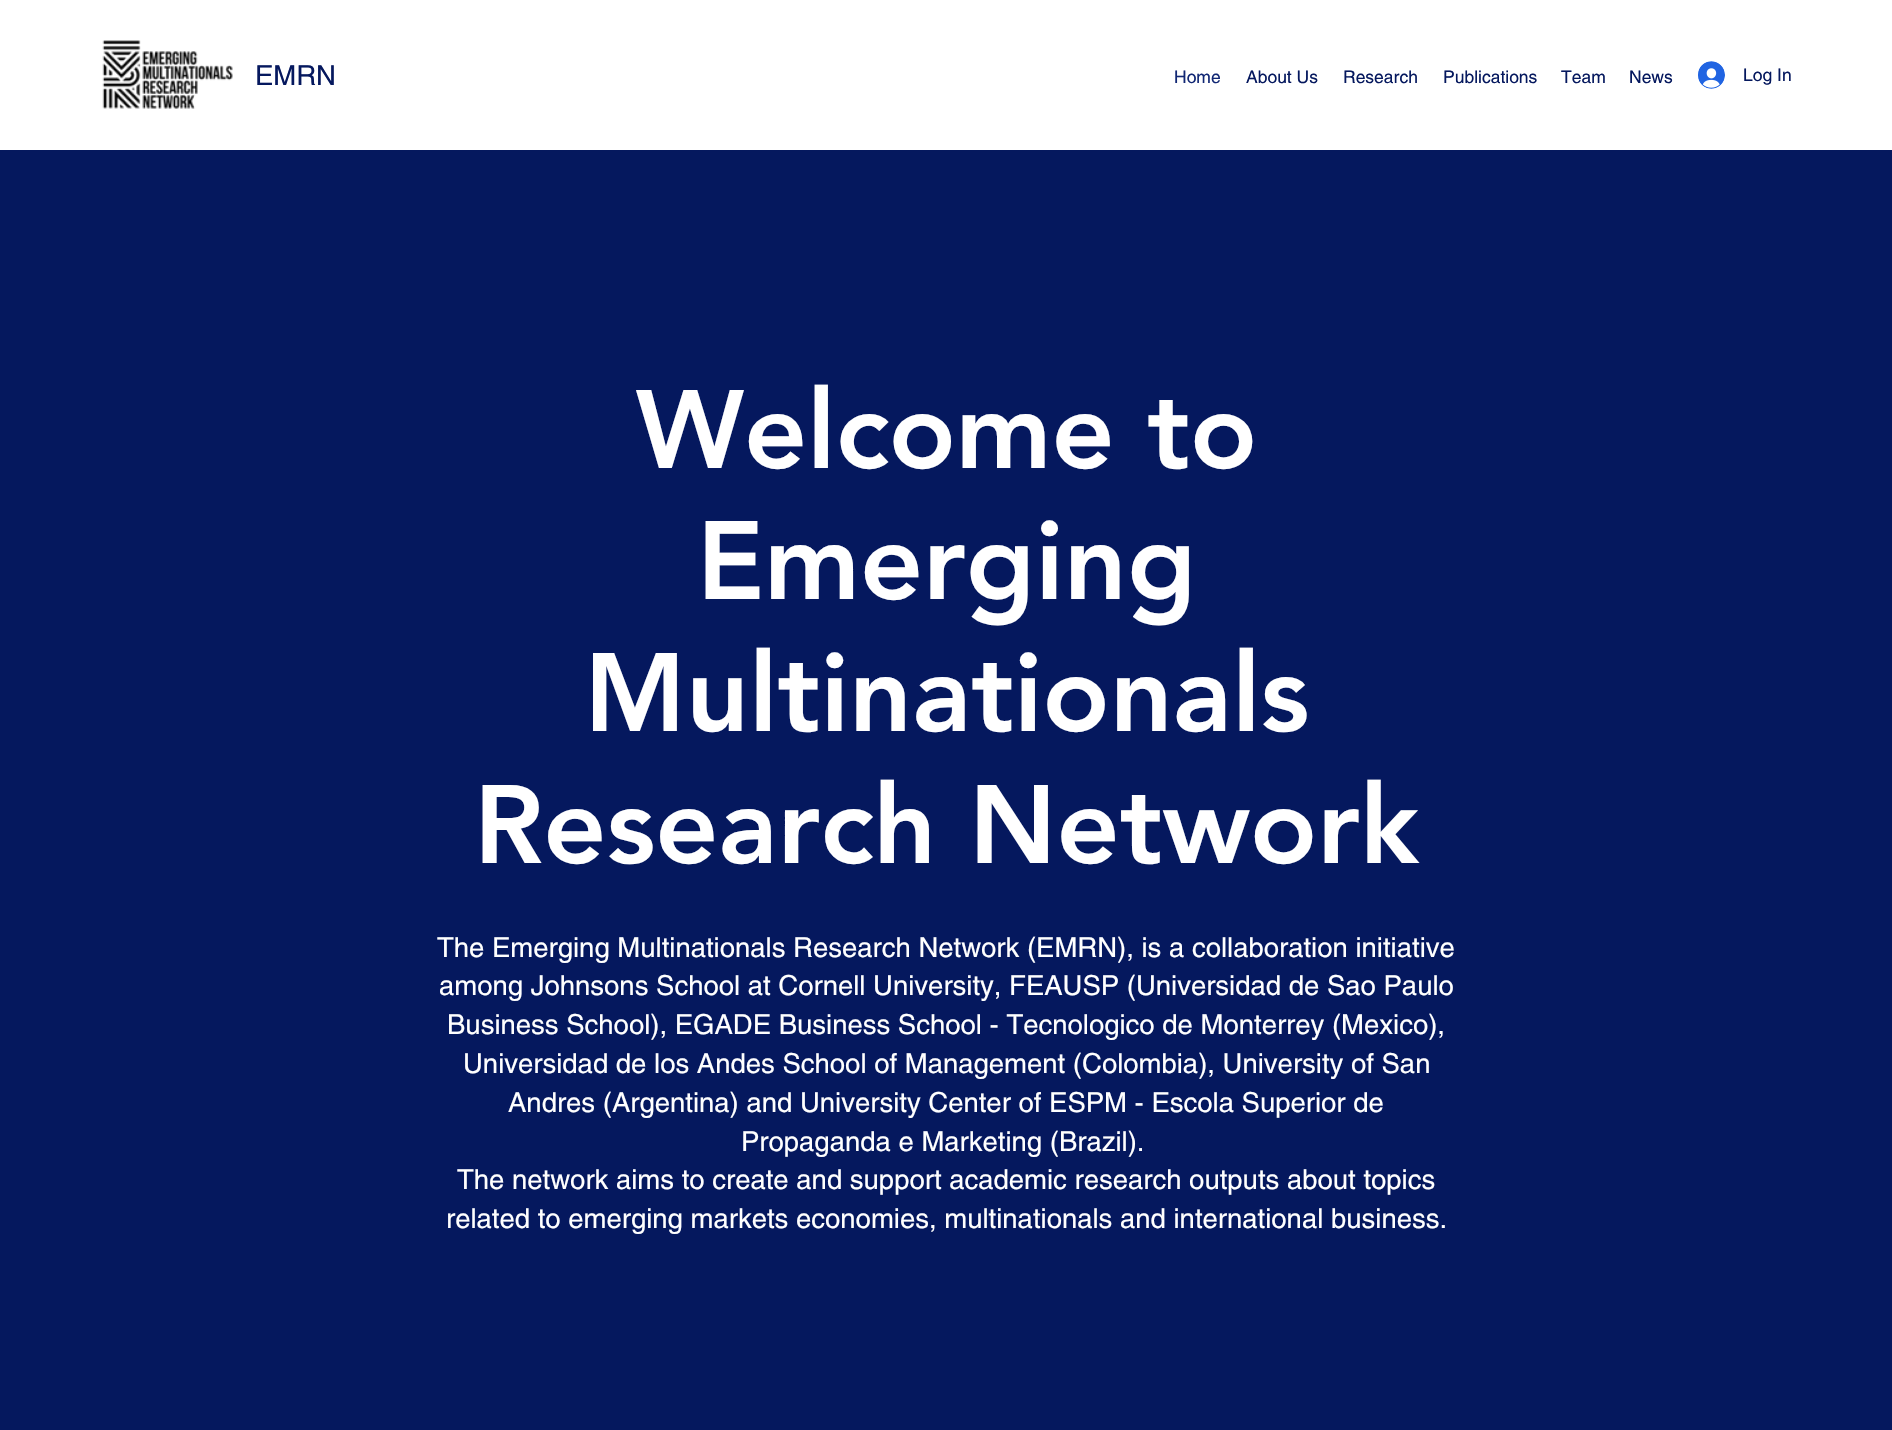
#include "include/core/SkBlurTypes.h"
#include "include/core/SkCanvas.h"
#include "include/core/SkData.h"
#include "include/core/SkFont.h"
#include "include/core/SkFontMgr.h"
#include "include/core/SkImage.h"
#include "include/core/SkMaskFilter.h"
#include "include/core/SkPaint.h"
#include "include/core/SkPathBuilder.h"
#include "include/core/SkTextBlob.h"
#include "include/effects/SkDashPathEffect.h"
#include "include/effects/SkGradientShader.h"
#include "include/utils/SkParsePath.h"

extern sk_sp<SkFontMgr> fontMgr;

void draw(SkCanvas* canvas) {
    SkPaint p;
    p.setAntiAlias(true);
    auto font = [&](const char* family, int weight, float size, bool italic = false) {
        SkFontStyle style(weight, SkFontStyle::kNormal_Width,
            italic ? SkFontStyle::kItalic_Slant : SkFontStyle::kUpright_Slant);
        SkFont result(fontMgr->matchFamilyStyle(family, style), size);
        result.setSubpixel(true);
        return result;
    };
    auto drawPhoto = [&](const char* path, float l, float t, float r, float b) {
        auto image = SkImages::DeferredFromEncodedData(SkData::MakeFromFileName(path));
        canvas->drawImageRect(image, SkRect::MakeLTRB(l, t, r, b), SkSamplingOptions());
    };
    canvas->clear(0xFFFFFFFF);
    drawPhoto("media/1.png", 102, 40, 233, 109);
    auto font1 = font("helvetica", 400, 27.5f);
    p.setColor(0xFF05185E);
    canvas->drawString("EMRN", 255, 85, font1, p);
    auto font2 = font("helvetica", 400, 17.5f);
    p.setColor(0xFF112774);
    canvas->drawString("Home", 1174, 83, font2, p);
    p.setColor(0xFF05185E);
    {
        const struct { const char* s; float x, y; } items[] = {
            {"About Us", 1246, 83},
            {"Research", 1343, 83},
            {"Publications", 1443, 83},
            {"Team", 1561, 83},
            {"News", 1629, 83},
        };
        for (auto [s, x, y] : items) {
            canvas->drawString(s, x, y, font2, p);
        }
    }
    drawPhoto("media/2.png", 1698, 61, 1725, 89);
    canvas->drawString("Log In", 1743, 81, font2, p);
    canvas->drawRect(SkRect::MakeLTRB(0, 150, 1892, 1430), p);
    auto font3 = font("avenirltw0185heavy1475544", 900, 110);
    p.setColor(0xFFFFFFFF);
    {
        const struct { const char* s; float x, y; } items[] = {
            {"Welcome to", 636, 468},
            {"Emerging", 697, 599},
            {"Multinationals", 584, 731},
            {"Research Network", 474, 863},
        };
        for (auto [s, x, y] : items) {
            canvas->drawString(s, x, y, font3, p);
        }
    }
    {
        const struct { const char* s; float x, y; } items[] = {
            {"The Emerging Multinationals Research Network (EMRN), is a collaboration initiative", 437, 957},
            {"among Johnsons School at Cornell University, FEAUSP (Universidad de Sao Paulo", 439, 995},
            {"Business School), EGADE Business School - Tecnologico de Monterrey (Mexico),", 447, 1034},
            {"Universidad de los Andes School of Management (Colombia), University of San", 463, 1073},
            {"Andres (Argentina) and University Center of ESPM - Escola Superior de", 508, 1112},
            {"Propaganda e Marketing (Brazil).", 741, 1151},
            {"The network aims to create and support academic research outputs about topics", 457, 1189},
            {"related to emerging markets economies, multinationals and international business.", 446, 1228},
        };
        for (auto [s, x, y] : items) {
            canvas->drawString(s, x, y, font1, p);
        }
    }
}
